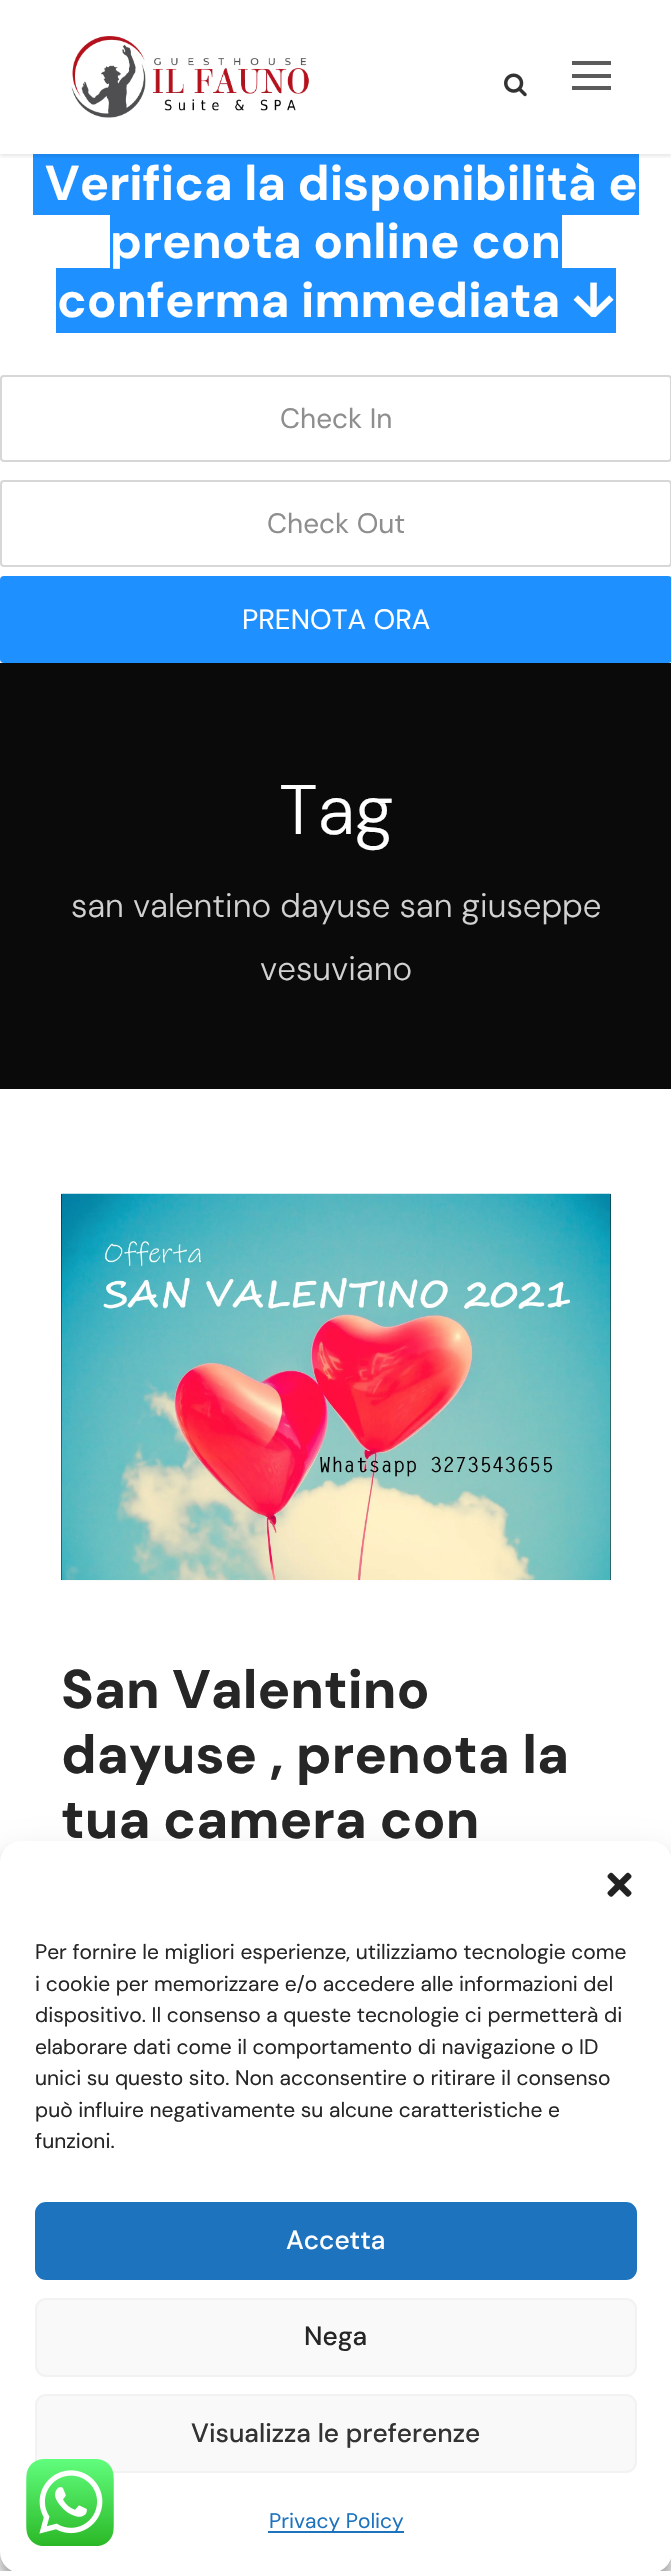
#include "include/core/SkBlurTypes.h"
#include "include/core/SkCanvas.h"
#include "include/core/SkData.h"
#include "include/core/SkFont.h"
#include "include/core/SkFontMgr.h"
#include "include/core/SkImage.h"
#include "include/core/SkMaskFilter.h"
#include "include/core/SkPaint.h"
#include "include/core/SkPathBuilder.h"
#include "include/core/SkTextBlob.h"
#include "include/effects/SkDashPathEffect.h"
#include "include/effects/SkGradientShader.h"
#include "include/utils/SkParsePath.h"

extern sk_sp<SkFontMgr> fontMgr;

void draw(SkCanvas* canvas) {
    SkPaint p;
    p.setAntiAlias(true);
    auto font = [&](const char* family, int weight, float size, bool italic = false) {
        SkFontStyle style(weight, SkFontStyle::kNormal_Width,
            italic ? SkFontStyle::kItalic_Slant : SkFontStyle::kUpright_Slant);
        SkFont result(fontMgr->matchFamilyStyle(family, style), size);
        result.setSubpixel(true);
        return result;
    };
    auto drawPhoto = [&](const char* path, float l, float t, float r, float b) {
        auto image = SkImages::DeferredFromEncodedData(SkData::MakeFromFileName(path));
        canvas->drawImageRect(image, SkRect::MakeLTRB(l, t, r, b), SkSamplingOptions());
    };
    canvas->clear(0xFFFFFFFF);
    p.setColor(0xFF1E90FF);
    canvas->drawRect(SkRect::MakeLTRB(33, 154, 639, 215), p);
    canvas->save();
    canvas->clipRect(SkRect::MakeLTRB(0, 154, 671, 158));
    p.setColor(0x1A000000);
    p.setMaskFilter(SkMaskFilter::MakeBlur(kNormal_SkBlurStyle, 2));
    canvas->drawRect(SkRect::MakeLTRB(0, 2, 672, 156), p);
    p.setMaskFilter(nullptr);
    canvas->restore();
    drawPhoto("media/1.png", 71, 36, 309, 118);
    drawPhoto("media/2.png", 504, 73, 527, 97);
    {
        const struct { float l, t, r, b; SkColor color; } items[] = {
            {572, 61, 611, 65, 0xFF5B5B5B},
            {572, 74, 611, 78, 0xFF5B5B5B},
            {572, 86, 611, 90, 0xFF5B5B5B},
        };
        for (auto [l, t, r, b, color] : items) {
            p.setColor(color);
            canvas->drawRect(SkRect::MakeLTRB(l, t, r, b), p);
        }
    }
    auto font1 = font("DM Sans", 700, 49);
    p.setColor(0xFFFFFFFF);
    canvas->drawString("Verifica la disponibilità e", 45, 200, font1, p);
    p.setColor(0xFF1E90FF);
    canvas->drawRect(SkRect::MakeLTRB(110, 215, 562, 268), p);
    canvas->drawRect(SkRect::MakeLTRB(56, 268, 616, 333), p);
    p.setColor(0xFFFFFFFF);
    canvas->drawString("prenota online con", 110, 258, font1, p);
    canvas->drawString("conferma immediata ↓", 57, 317, font1, p);
    p.setStyle(SkPaint::kStroke_Style);
    p.setStrokeWidth(2);
    p.setColor(0xFFD7D7D7);
    canvas->drawRoundRect(SkRect::MakeLTRB(1, 376, 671, 461), 3, 3, p);
    auto font2 = font("DM Sans", 400, 28);
    p.setStyle(SkPaint::kFill_Style);
    p.setColor(0xFF8E8E8E);
    canvas->drawString("Check In", 280, 428, font2, p);
    p.setStyle(SkPaint::kStroke_Style);
    p.setColor(0xFFD7D7D7);
    canvas->drawRoundRect(SkRect::MakeLTRB(1, 481, 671, 566), 3, 3, p);
    p.setStyle(SkPaint::kFill_Style);
    p.setColor(0xFF8E8E8E);
    canvas->drawString("Check Out", 267, 533, font2, p);
    p.setColor(0xFF1E90FF);
    canvas->drawRoundRect(SkRect::MakeLTRB(0, 576, 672, 663), 4, 4, p);
    p.setColor(0xFFFFFFFF);
    canvas->drawString("PRENOTA ORA", 242, 629, font2, p);
    p.setColor(0xFF0A0A0A);
    canvas->drawRect(SkRect::MakeLTRB(0, 663, 671, 1089), p);
    auto font3 = font("DM Sans", 300, 70);
    p.setColor(0xFFFFFFFF);
    canvas->drawString("Tag", 279, 834, font3, p);
    auto font4 = font("DM Sans", 300, 33.25f);
    p.setColor(0xFFD1D1D1);
    canvas->drawString("san valentino dayuse san giuseppe", 71, 917, font4, p);
    canvas->drawString("vesuviano", 260, 980, font4, p);
    p.setColor(0xFF000000);
    canvas->drawRect(SkRect::MakeLTRB(61, 1194, 611, 1580), p);
    drawPhoto("media/3.png", 61, 1193, 611, 1581);
    auto font5 = font("DM Sans", 800, 54.25f);
    p.setColor(0xFF262626);
    {
        const struct { const char* s; float x, y; } items[] = {
            {"San Valentino", 61, 1708},
            {"dayuse , prenota la", 61, 1773},
            {"tua camera con", 61, 1838},
        };
        for (auto [s, x, y] : items) {
            canvas->drawString(s, x, y, font5, p);
        }
    }
    p.setColor(0x3B000000);
    p.setMaskFilter(SkMaskFilter::MakeBlur(kNormal_SkBlurStyle, 5));
    canvas->drawRoundRect(SkRect::MakeLTRB(0, 1852, 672, 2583), 21, 21, p);
    p.setMaskFilter(nullptr);
    p.setColor(0x30000000);
    p.setMaskFilter(SkMaskFilter::MakeBlur(kNormal_SkBlurStyle, 17.5f));
    canvas->drawRoundRect(SkRect::MakeLTRB(0, 1859, 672, 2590), 21, 21, p);
    p.setMaskFilter(nullptr);
    p.setColor(0xFFFFFFFF);
    canvas->drawRoundRect(SkRect::MakeLTRB(0, 1841, 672, 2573), 21, 21, p);
    drawPhoto("media/4.png", 607, 1872, 632, 1897);
    auto font6 = font("DM Sans", 400, 21);
    p.setColor(0xFF262626);
    {
        const struct { const char* s; float x, y; } items[] = {
            {"Per fornire le migliori esperienze, utilizziamo tecnologie come", 35, 1959},
            {"i cookie per memorizzare e/o accedere alle informazioni del", 35, 1991},
            {"dispositivo. Il consenso a queste tecnologie ci permetterà di", 35, 2022},
            {"elaborare dati come il comportamento di navigazione o ID", 35, 2054},
            {"unici su questo sito. Non acconsentire o ritirare il consenso", 35, 2085},
            {"può influire negativamente su alcune caratteristiche e", 35, 2117},
            {"funzioni.", 35, 2148},
        };
        for (auto [s, x, y] : items) {
            canvas->drawString(s, x, y, font6, p);
        }
    }
    p.setColor(0xFF1E73BE);
    canvas->drawRoundRect(SkRect::MakeLTRB(36, 2203, 636, 2279), 10, 10, p);
    p.setStyle(SkPaint::kStroke_Style);
    canvas->drawRoundRect(SkRect::MakeLTRB(36, 2203, 636, 2279), 10, 10, p);
    auto font7 = font("DM Sans", 500, 26.25f);
    p.setStyle(SkPaint::kFill_Style);
    p.setColor(0xFFFFFFFF);
    canvas->drawString("Accetta", 286, 2249, font7, p);
    p.setColor(0xFFF9F9F9);
    canvas->drawRoundRect(SkRect::MakeLTRB(36, 2299, 636, 2376), 10, 10, p);
    p.setStyle(SkPaint::kStroke_Style);
    p.setColor(0xFFF2F2F2);
    canvas->drawRoundRect(SkRect::MakeLTRB(36, 2299, 636, 2376), 10, 10, p);
    p.setStyle(SkPaint::kFill_Style);
    p.setColor(0xFF262626);
    canvas->drawString("Nega", 304, 2345, font7, p);
    p.setColor(0xFFF9F9F9);
    canvas->drawRoundRect(SkRect::MakeLTRB(36, 2395, 636, 2472), 10, 10, p);
    p.setStyle(SkPaint::kStroke_Style);
    p.setColor(0xFFF2F2F2);
    canvas->drawRoundRect(SkRect::MakeLTRB(36, 2395, 636, 2472), 10, 10, p);
    p.setStyle(SkPaint::kFill_Style);
    p.setColor(0xFF333333);
    canvas->drawString("Visualizza le preferenze", 191, 2442, font7, p);
    p.setColor(0xFF1E73BE);
    canvas->drawRect(SkRect::MakeLTRB(268, 2531, 404, 2533), p);
    canvas->drawString("Privacy Policy", 269, 2528, font6, p);
    drawPhoto("media/5.png", 26, 2459, 114, 2546);
}
